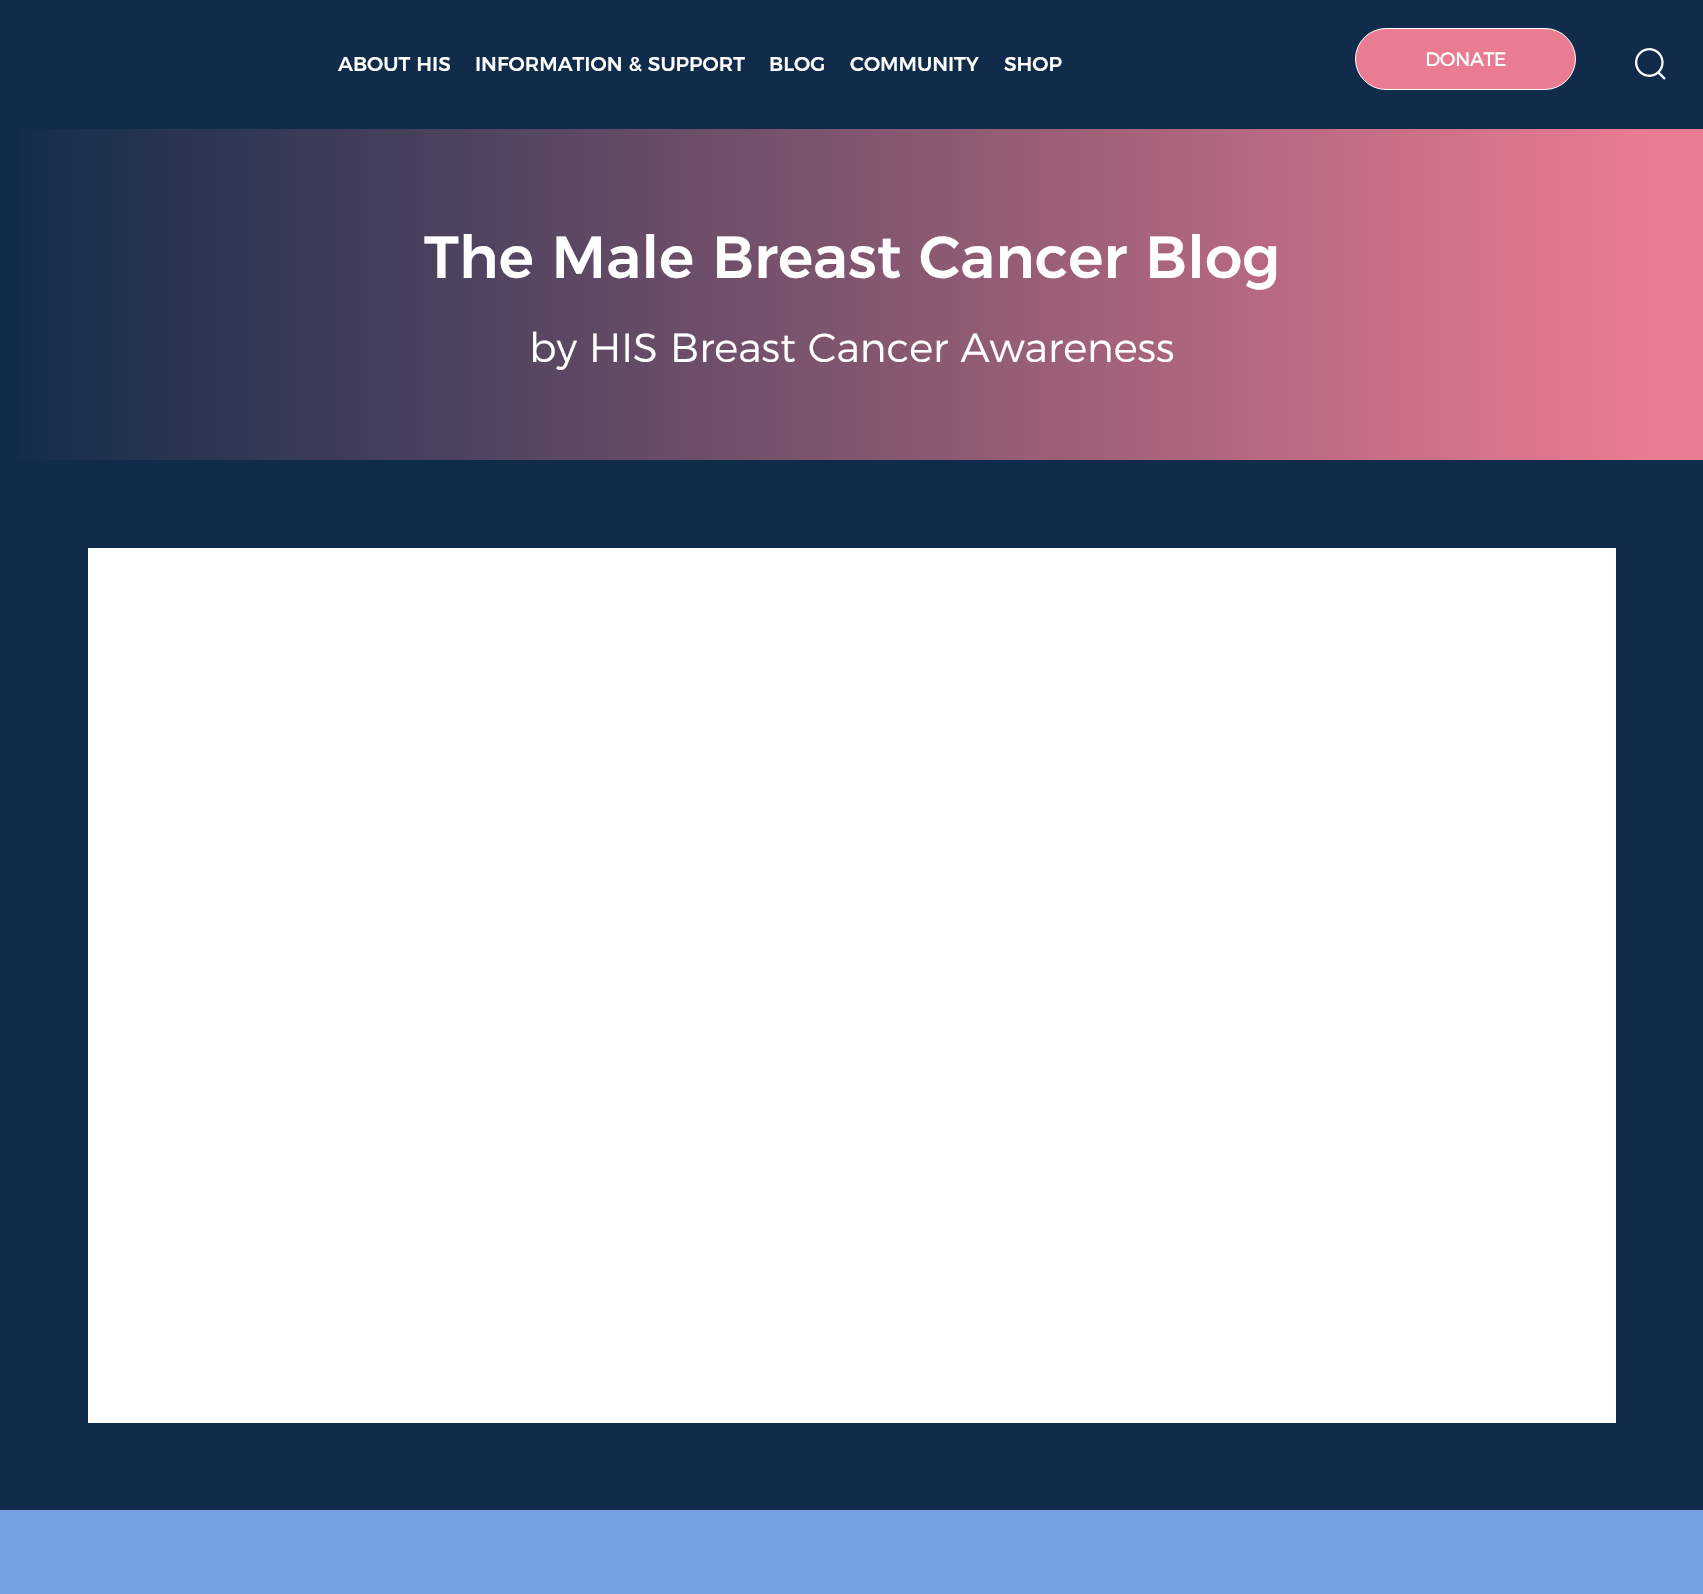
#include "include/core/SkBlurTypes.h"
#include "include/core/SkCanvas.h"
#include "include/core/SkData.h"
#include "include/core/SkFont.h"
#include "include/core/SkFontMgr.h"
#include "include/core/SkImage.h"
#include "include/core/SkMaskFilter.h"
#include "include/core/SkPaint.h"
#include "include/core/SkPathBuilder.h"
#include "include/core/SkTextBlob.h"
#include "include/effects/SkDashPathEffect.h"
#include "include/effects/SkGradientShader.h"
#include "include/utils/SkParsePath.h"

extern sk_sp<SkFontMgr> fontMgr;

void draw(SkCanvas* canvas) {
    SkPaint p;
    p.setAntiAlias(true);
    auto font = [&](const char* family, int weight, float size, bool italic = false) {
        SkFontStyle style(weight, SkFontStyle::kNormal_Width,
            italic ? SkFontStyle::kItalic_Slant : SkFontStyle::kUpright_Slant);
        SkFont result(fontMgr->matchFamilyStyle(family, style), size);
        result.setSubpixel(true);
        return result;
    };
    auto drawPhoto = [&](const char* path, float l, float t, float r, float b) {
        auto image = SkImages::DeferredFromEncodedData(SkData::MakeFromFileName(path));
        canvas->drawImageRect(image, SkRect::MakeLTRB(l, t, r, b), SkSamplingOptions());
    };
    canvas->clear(0xFF112C4B);
    auto font1 = font("Montserrat", 500, 20);
    p.setColor(0xFFFFFFFF);
    {
        const struct { const char* s; float x, y; } items[] = {
            {"ABOUT HIS", 338, 71},
            {"INFORMATION & SUPPORT", 475, 71},
            {"BLOG", 769, 71},
            {"COMMUNITY", 850, 71},
            {"SHOP", 1004, 71},
        };
        for (auto [s, x, y] : items) {
            canvas->drawString(s, x, y, font1, p);
        }
    }
    p.setColor(0xFFEA7C91);
    canvas->drawRoundRect(SkRect::MakeLTRB(1355.5f, 28.5f, 1575.5f, 89.5f), 30.5f, 30.5f, p);
    p.setStyle(SkPaint::kStroke_Style);
    p.setStrokeWidth(1);
    p.setColor(0xFFFFFFFF);
    canvas->drawRoundRect(SkRect::MakeLTRB(1355.5f, 28.5f, 1575.5f, 89.5f), 30.5f, 30.5f, p);
    auto font2 = font("Montserrat", 700, 18.75f);
    p.setStyle(SkPaint::kFill_Style);
    canvas->drawString("DONATE", 1425, 66, font2, p);
    drawPhoto("media/1.png", 1635, 48, 1666, 80);
    {
        const SkColor colors[] = {0xFF112C4B, 0xFFEA7C91};
        const float stops[] = {0, 0.97f};
        const SkPoint ends[] = {{0, 294}, {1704, 294}};
        p.setShader(SkGradientShader::MakeLinear(ends, colors, stops, 2, SkTileMode::kClamp));
        p.setAlpha(255);
    }
    canvas->drawRect(SkRect::MakeLTRB(19, 129, 1703, 460), p);
    auto font3 = font("Montserrat", 500, 59.3f);
    p.setShader(nullptr);
    p.setColor(0xFFFFFFFF);
    canvas->drawString("The Male Breast Cancer Blog", 424, 278, font3, p);
    auto font4 = font("Montserrat", 300, 40.6f);
    canvas->drawString("by HIS Breast Cancer Awareness", 529, 362, font4, p);
    canvas->drawRect(SkRect::MakeLTRB(88, 548, 1616, 1423), p);
    p.setColor(0xFF75A0E4);
    canvas->drawRect(SkRect::MakeLTRB(0, 1510, 1703, 1594), p);
}
